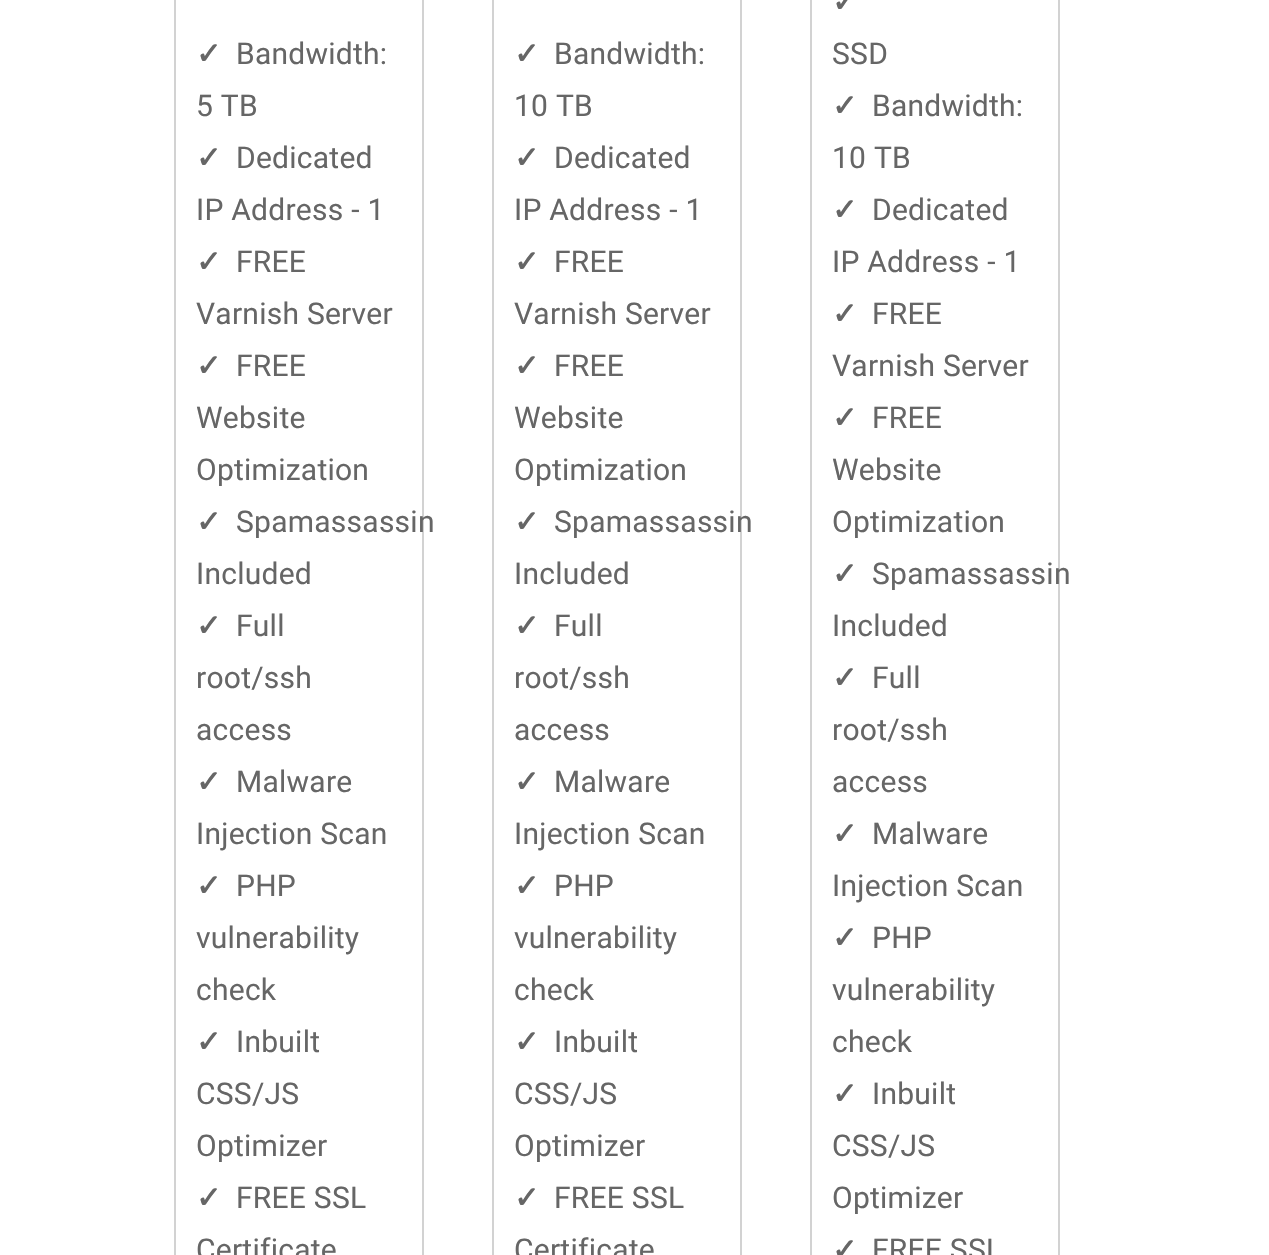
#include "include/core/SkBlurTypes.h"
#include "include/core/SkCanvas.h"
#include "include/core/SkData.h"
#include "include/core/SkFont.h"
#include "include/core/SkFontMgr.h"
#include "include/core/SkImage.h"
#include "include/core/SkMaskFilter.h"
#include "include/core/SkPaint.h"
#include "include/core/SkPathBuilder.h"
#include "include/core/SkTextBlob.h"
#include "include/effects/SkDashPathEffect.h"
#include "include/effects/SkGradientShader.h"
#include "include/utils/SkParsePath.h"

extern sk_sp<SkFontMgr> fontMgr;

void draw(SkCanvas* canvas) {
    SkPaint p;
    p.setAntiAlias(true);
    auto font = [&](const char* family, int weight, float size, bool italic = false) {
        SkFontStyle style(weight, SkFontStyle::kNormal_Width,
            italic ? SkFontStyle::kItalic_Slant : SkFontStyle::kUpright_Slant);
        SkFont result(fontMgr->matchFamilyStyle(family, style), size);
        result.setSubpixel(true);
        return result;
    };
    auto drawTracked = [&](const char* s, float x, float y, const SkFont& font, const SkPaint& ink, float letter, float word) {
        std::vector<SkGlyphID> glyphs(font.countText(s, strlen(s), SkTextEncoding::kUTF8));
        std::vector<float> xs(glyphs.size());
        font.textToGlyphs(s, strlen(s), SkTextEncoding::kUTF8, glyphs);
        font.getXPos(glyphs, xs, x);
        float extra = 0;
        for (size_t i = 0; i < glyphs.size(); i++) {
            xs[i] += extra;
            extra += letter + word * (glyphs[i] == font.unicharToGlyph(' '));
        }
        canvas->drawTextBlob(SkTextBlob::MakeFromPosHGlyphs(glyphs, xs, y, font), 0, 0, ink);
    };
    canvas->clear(0xFFFFFFFF);
    p.setStyle(SkPaint::kStroke_Style);
    p.setStrokeWidth(2);
    p.setColor(0xFFD2D2D2);
    canvas->drawRect(SkRect::MakeLTRB(175, -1, 423, 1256), p);
    auto font1 = font("DejaVu Sans", 700, 30);
    p.setStyle(SkPaint::kFill_Style);
    p.setColor(0xFF666666);
    drawTracked("✓", 196, 64, font1, p, 0.25f, 0);
    auto font2 = font("Roboto", 400, 30);
    drawTracked("Bandwidth:", 236, 64, font2, p, 0.25f, 0);
    drawTracked("5 TB", 196, 116, font2, p, 0.25f, 0);
    drawTracked("✓", 196, 168, font1, p, 0.25f, 0);
    drawTracked("Dedicated", 236, 168, font2, p, 0.25f, 0);
    drawTracked("IP Address - 1", 196, 220, font2, p, 0.25f, 0);
    drawTracked("✓", 196, 272, font1, p, 0.25f, 0);
    drawTracked("FREE", 236, 272, font2, p, 0.25f, 0);
    drawTracked("Varnish Server", 196, 324, font2, p, 0.25f, 0);
    drawTracked("✓", 196, 376, font1, p, 0.25f, 0);
    {
        const struct { const char* s; float x, y; } items[] = {
            {"FREE", 236, 376},
            {"Website", 196, 428},
            {"Optimization", 196, 480},
        };
        for (auto [s, x, y] : items) {
            drawTracked(s, x, y, font2, p, 0.25f, 0);
        }
    }
    drawTracked("✓", 196, 532, font1, p, 0.25f, 0);
    drawTracked("Spamassassin", 236, 532, font2, p, 0.25f, 0);
    drawTracked("Included", 196, 584, font2, p, 0.25f, 0);
    drawTracked("✓", 196, 636, font1, p, 0.25f, 0);
    {
        const struct { const char* s; float x, y; } items[] = {
            {"Full", 236, 636},
            {"root/ssh", 196, 688},
            {"access", 196, 740},
        };
        for (auto [s, x, y] : items) {
            drawTracked(s, x, y, font2, p, 0.25f, 0);
        }
    }
    drawTracked("✓", 196, 792, font1, p, 0.25f, 0);
    drawTracked("Malware", 236, 792, font2, p, 0.25f, 0);
    drawTracked("Injection Scan", 196, 844, font2, p, 0.25f, 0);
    drawTracked("✓", 196, 896, font1, p, 0.25f, 0);
    {
        const struct { const char* s; float x, y; } items[] = {
            {"PHP", 236, 896},
            {"vulnerability", 196, 948},
            {"check", 196, 1000},
        };
        for (auto [s, x, y] : items) {
            drawTracked(s, x, y, font2, p, 0.25f, 0);
        }
    }
    drawTracked("✓", 196, 1052, font1, p, 0.25f, 0);
    {
        const struct { const char* s; float x, y; } items[] = {
            {"Inbuilt", 236, 1052},
            {"CSS/JS", 196, 1104},
            {"Optimizer", 196, 1156},
        };
        for (auto [s, x, y] : items) {
            drawTracked(s, x, y, font2, p, 0.25f, 0);
        }
    }
    drawTracked("✓", 196, 1208, font1, p, 0.25f, 0);
    drawTracked("FREE SSL", 236, 1208, font2, p, 0.25f, 0);
    drawTracked("Certificate", 196, 1260, font2, p, 0.25f, 0);
    p.setStyle(SkPaint::kStroke_Style);
    p.setColor(0xFFD2D2D2);
    canvas->drawRect(SkRect::MakeLTRB(493, -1, 741, 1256), p);
    p.setStyle(SkPaint::kFill_Style);
    p.setColor(0xFF666666);
    drawTracked("✓", 514, 64, font1, p, 0.25f, 0);
    drawTracked("Bandwidth:", 554, 64, font2, p, 0.25f, 0);
    drawTracked("10 TB", 514, 116, font2, p, 0.25f, 0);
    drawTracked("✓", 514, 168, font1, p, 0.25f, 0);
    drawTracked("Dedicated", 554, 168, font2, p, 0.25f, 0);
    drawTracked("IP Address - 1", 514, 220, font2, p, 0.25f, 0);
    drawTracked("✓", 514, 272, font1, p, 0.25f, 0);
    drawTracked("FREE", 554, 272, font2, p, 0.25f, 0);
    drawTracked("Varnish Server", 514, 324, font2, p, 0.25f, 0);
    drawTracked("✓", 514, 376, font1, p, 0.25f, 0);
    {
        const struct { const char* s; float x, y; } items[] = {
            {"FREE", 554, 376},
            {"Website", 514, 428},
            {"Optimization", 514, 480},
        };
        for (auto [s, x, y] : items) {
            drawTracked(s, x, y, font2, p, 0.25f, 0);
        }
    }
    drawTracked("✓", 514, 532, font1, p, 0.25f, 0);
    drawTracked("Spamassassin", 554, 532, font2, p, 0.25f, 0);
    drawTracked("Included", 514, 584, font2, p, 0.25f, 0);
    drawTracked("✓", 514, 636, font1, p, 0.25f, 0);
    {
        const struct { const char* s; float x, y; } items[] = {
            {"Full", 554, 636},
            {"root/ssh", 514, 688},
            {"access", 514, 740},
        };
        for (auto [s, x, y] : items) {
            drawTracked(s, x, y, font2, p, 0.25f, 0);
        }
    }
    drawTracked("✓", 514, 792, font1, p, 0.25f, 0);
    drawTracked("Malware", 554, 792, font2, p, 0.25f, 0);
    drawTracked("Injection Scan", 514, 844, font2, p, 0.25f, 0);
    drawTracked("✓", 514, 896, font1, p, 0.25f, 0);
    {
        const struct { const char* s; float x, y; } items[] = {
            {"PHP", 554, 896},
            {"vulnerability", 514, 948},
            {"check", 514, 1000},
        };
        for (auto [s, x, y] : items) {
            drawTracked(s, x, y, font2, p, 0.25f, 0);
        }
    }
    drawTracked("✓", 514, 1052, font1, p, 0.25f, 0);
    {
        const struct { const char* s; float x, y; } items[] = {
            {"Inbuilt", 554, 1052},
            {"CSS/JS", 514, 1104},
            {"Optimizer", 514, 1156},
        };
        for (auto [s, x, y] : items) {
            drawTracked(s, x, y, font2, p, 0.25f, 0);
        }
    }
    drawTracked("✓", 514, 1208, font1, p, 0.25f, 0);
    drawTracked("FREE SSL", 554, 1208, font2, p, 0.25f, 0);
    drawTracked("Certificate", 514, 1260, font2, p, 0.25f, 0);
    p.setStyle(SkPaint::kStroke_Style);
    p.setColor(0xFFD2D2D2);
    canvas->drawRect(SkRect::MakeLTRB(811, -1, 1059, 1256), p);
    p.setStyle(SkPaint::kFill_Style);
    p.setColor(0xFF666666);
    drawTracked("✓", 832, 12, font1, p, 0.25f, 0);
    drawTracked("SSD", 832, 64, font2, p, 0.25f, 0);
    drawTracked("✓", 832, 116, font1, p, 0.25f, 0);
    drawTracked("Bandwidth:", 872, 116, font2, p, 0.25f, 0);
    drawTracked("10 TB", 832, 168, font2, p, 0.25f, 0);
    drawTracked("✓", 832, 220, font1, p, 0.25f, 0);
    drawTracked("Dedicated", 872, 220, font2, p, 0.25f, 0);
    drawTracked("IP Address - 1", 832, 272, font2, p, 0.25f, 0);
    drawTracked("✓", 832, 324, font1, p, 0.25f, 0);
    drawTracked("FREE", 872, 324, font2, p, 0.25f, 0);
    drawTracked("Varnish Server", 832, 376, font2, p, 0.25f, 0);
    drawTracked("✓", 832, 428, font1, p, 0.25f, 0);
    {
        const struct { const char* s; float x, y; } items[] = {
            {"FREE", 872, 428},
            {"Website", 832, 480},
            {"Optimization", 832, 532},
        };
        for (auto [s, x, y] : items) {
            drawTracked(s, x, y, font2, p, 0.25f, 0);
        }
    }
    drawTracked("✓", 832, 584, font1, p, 0.25f, 0);
    drawTracked("Spamassassin", 872, 584, font2, p, 0.25f, 0);
    drawTracked("Included", 832, 636, font2, p, 0.25f, 0);
    drawTracked("✓", 832, 688, font1, p, 0.25f, 0);
    {
        const struct { const char* s; float x, y; } items[] = {
            {"Full", 872, 688},
            {"root/ssh", 832, 740},
            {"access", 832, 792},
        };
        for (auto [s, x, y] : items) {
            drawTracked(s, x, y, font2, p, 0.25f, 0);
        }
    }
    drawTracked("✓", 832, 844, font1, p, 0.25f, 0);
    drawTracked("Malware", 872, 844, font2, p, 0.25f, 0);
    drawTracked("Injection Scan", 832, 896, font2, p, 0.25f, 0);
    drawTracked("✓", 832, 948, font1, p, 0.25f, 0);
    {
        const struct { const char* s; float x, y; } items[] = {
            {"PHP", 872, 948},
            {"vulnerability", 832, 1000},
            {"check", 832, 1052},
        };
        for (auto [s, x, y] : items) {
            drawTracked(s, x, y, font2, p, 0.25f, 0);
        }
    }
    drawTracked("✓", 832, 1104, font1, p, 0.25f, 0);
    {
        const struct { const char* s; float x, y; } items[] = {
            {"Inbuilt", 872, 1104},
            {"CSS/JS", 832, 1156},
            {"Optimizer", 832, 1208},
        };
        for (auto [s, x, y] : items) {
            drawTracked(s, x, y, font2, p, 0.25f, 0);
        }
    }
    drawTracked("✓", 832, 1260, font1, p, 0.25f, 0);
    drawTracked("FREE SSL", 872, 1260, font2, p, 0.25f, 0);
}
